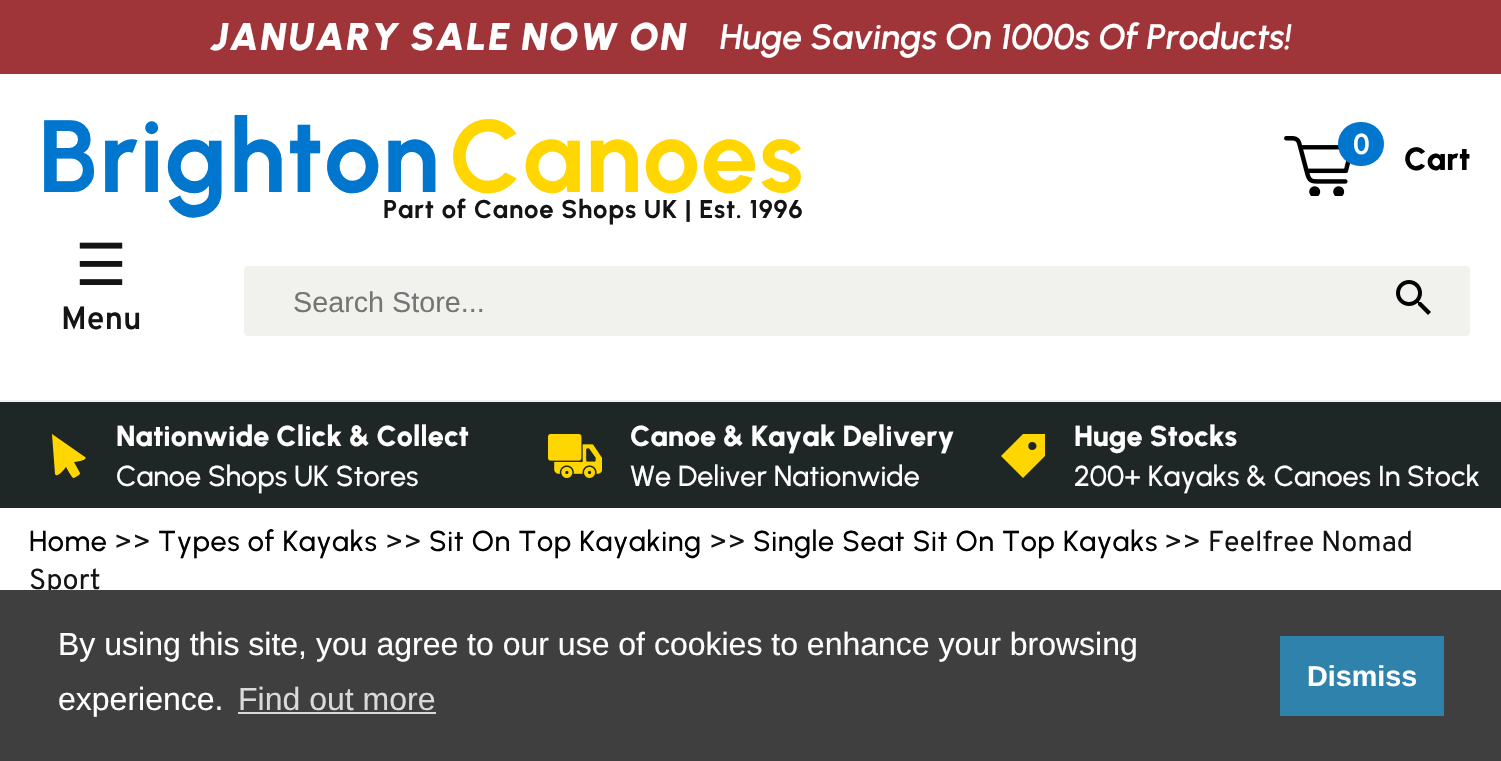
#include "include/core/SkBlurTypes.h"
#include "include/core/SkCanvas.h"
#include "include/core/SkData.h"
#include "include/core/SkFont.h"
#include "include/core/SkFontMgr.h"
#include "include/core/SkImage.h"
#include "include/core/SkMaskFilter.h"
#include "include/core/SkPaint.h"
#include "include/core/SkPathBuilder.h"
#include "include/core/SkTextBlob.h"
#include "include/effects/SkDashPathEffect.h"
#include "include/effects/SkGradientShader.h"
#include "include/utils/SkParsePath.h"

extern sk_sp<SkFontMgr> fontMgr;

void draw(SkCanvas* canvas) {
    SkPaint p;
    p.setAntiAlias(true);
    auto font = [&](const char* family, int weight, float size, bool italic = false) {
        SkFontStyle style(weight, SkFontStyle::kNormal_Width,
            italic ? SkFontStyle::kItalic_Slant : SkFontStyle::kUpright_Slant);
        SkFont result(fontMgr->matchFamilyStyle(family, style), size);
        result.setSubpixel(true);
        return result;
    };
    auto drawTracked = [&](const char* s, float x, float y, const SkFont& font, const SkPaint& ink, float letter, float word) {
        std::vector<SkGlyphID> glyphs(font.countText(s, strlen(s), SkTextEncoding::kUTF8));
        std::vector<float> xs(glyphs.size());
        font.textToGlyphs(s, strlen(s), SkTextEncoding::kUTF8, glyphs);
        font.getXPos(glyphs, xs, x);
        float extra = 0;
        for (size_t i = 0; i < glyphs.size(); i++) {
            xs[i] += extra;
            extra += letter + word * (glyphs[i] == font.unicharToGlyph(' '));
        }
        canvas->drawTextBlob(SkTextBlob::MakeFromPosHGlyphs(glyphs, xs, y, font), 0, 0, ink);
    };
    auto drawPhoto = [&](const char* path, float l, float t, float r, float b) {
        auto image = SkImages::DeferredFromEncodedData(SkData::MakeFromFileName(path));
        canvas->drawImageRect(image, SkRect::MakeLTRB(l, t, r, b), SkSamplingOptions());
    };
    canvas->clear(0xFFFFFFFF);
    p.setColor(0xFF9F3539);
    canvas->drawRect(SkRect::MakeLTRB(0, 0, 1501, 74), p);
    auto font1 = font("Urbanist", 900, 38.4f, true);
    p.setColor(0xFFFFFFFF);
    drawTracked("JANUARY SALE NOW ON", 211, 50, font1, p, 1.3f, 0);
    auto font2 = font("Urbanist", 600, 35.25f, true);
    canvas->drawString("Huge Savings On 1000s Of Products!", 720, 49, font2, p);
    auto font3 = font("Urbanist", 700, 102.5f);
    p.setColor(0xFF0076CE);
    drawTracked("Brighton", 38, 192, font3, p, 0.8f, 0);
    p.setColor(0xFFFFD600);
    drawTracked("Canoes", 449, 192, font3, p, 0.8f, 0);
    auto font4 = font("Urbanist", 700, 25.6f);
    p.setColor(0xFF141416);
    drawTracked("Part of Canoe Shops UK | Est. 1996", 383, 218, font4, p, 0.8f, 0);
    drawPhoto("media/1.png", 1284, 136, 1351, 196);
    p.setColor(0xFF0076CE);
    canvas->drawRoundRect(SkRect::MakeLTRB(1338, 122, 1384, 166), 22, 22, p);
    auto font5 = font("Overpass", 600, 28.75f);
    p.setColor(0xFFFFFFFF);
    canvas->drawString("0", 1352, 154, font5, p);
    auto font6 = font("Urbanist", 800, 32);
    p.setColor(0xFF000000);
    canvas->drawString("Cart", 1404, 170, font6, p);
    auto font7 = font("DejaVu Sans", 400, 58);
    p.setColor(0xFF141416);
    canvas->drawString("☰", 75, 285, font7, p);
    auto font8 = font("Overpass", 600, 32);
    canvas->drawString("Menu", 61, 329, font8, p);
    p.setColor(0xFFF1F1EE);
    canvas->drawRoundRect(SkRect::MakeLTRB(244, 266, 1470, 336), 4, 4, p);
    auto font9 = font("Liberation Sans", 400, 28.75f);
    p.setColor(0xFF757575);
    canvas->drawString("Search Store...", 293, 312, font9, p);
    drawPhoto("media/2.png", 1396, 280, 1431, 315);
    p.setColor(0xFFF2F2F2);
    canvas->drawRect(SkRect::MakeLTRB(0, 400, 1501, 402), p);
    p.setColor(0xFF1F2626);
    canvas->drawRect(SkRect::MakeLTRB(0, 402, 1501, 508), p);
    p.setColor(0xFFFFD600);
    canvas->drawPath(SkPathBuilder().moveTo(74, 478).cubicTo(72, 479, 67, 468, 66, 467).cubicTo(65, 468, 57, 479, 55, 474).lineTo(52, 434).lineTo(85, 457).cubicTo(89, 460, 75, 462, 74, 462).lineTo(80, 473).cubicTo(80, 473, 80, 474, 79, 475).close().detach(), p);
    auto font10 = font("Urbanist", 800, 28.75f);
    p.setColor(0xFFFFFFFF);
    canvas->drawString("Nationwide Click & Collect", 116, 446, font10, p);
    auto font11 = font("Urbanist", 500, 28.75f);
    canvas->drawString("Canoe Shops UK Stores", 116, 486, font11, p);
    drawPhoto("media/3.png", 548, 434, 602, 478);
    canvas->drawString("Canoe & Kayak Delivery", 630, 446, font10, p);
    canvas->drawString("We Deliver Nationwide", 630, 486, font11, p);
    p.setColor(0xFFFFD600);
    canvas->drawPath(SkPathBuilder(SkPathFillType::kEvenOdd).moveTo(1001, 456).lineTo(1023, 434).lineTo(1045, 434).lineTo(1045, 456).lineTo(1023, 478).close().moveTo(1032, 450).cubicTo(1027, 450, 1027, 442, 1032, 442).cubicTo(1038, 442, 1038, 450, 1032, 450).close().detach(), p);
    p.setColor(0xFFFFFFFF);
    canvas->drawString("Huge Stocks", 1074, 446, font10, p);
    canvas->drawString("200+ Kayaks & Canoes In Stock", 1074, 486, font11, p);
    p.setColor(0xFF000000);
    drawTracked("Home", 29, 551, font11, p, 0.6f, 0);
    auto font12 = font("Overpass", 400, 28.75f);
    p.setColor(0xFF141416);
    canvas->drawString(">>", 114, 551, font12, p);
    p.setColor(0xFF000000);
    drawTracked("Types of Kayaks", 158, 551, font11, p, 0.6f, 0);
    p.setColor(0xFF141416);
    canvas->drawString(">>", 385, 551, font12, p);
    p.setColor(0xFF000000);
    drawTracked("Sit On Top Kayaking", 429, 551, font11, p, 0.6f, 0);
    p.setColor(0xFF141416);
    canvas->drawString(">>", 709, 551, font12, p);
    p.setColor(0xFF000000);
    drawTracked("Single Seat Sit On Top Kayaks", 753, 551, font11, p, 0.6f, 0);
    p.setColor(0xFF141416);
    canvas->drawString(">> Feelfree Nomad", 1164, 551, font12, p);
    canvas->drawString("Sport", 29, 589, font12, p);
    p.setColor(0xFF3F3F3F);
    canvas->drawRect(SkRect::MakeLTRB(0, 590, 1501, 761), p);
    auto font13 = font("Liberation Sans", 400, 32);
    p.setColor(0xFFFFFFFF);
    canvas->drawString("By using this site, you agree to our use of cookies to enhance your browsing", 58, 655, font13, p);
    canvas->drawString("experience.", 58, 710, font13, p);
    p.setColor(0xFFD9D9D9);
    canvas->drawString("Find out more", 238, 710, font13, p);
    canvas->drawRect(SkRect::MakeLTRB(238, 712, 436, 714), p);
    p.setColor(0xFF2F82AC);
    canvas->drawRect(SkRect::MakeLTRB(1280, 636, 1444, 716), p);
    auto font14 = font("Liberation Sans", 700, 28.75f);
    p.setColor(0xFFFFFFFF);
    canvas->drawString("Dismiss", 1307, 686, font14, p);
}
